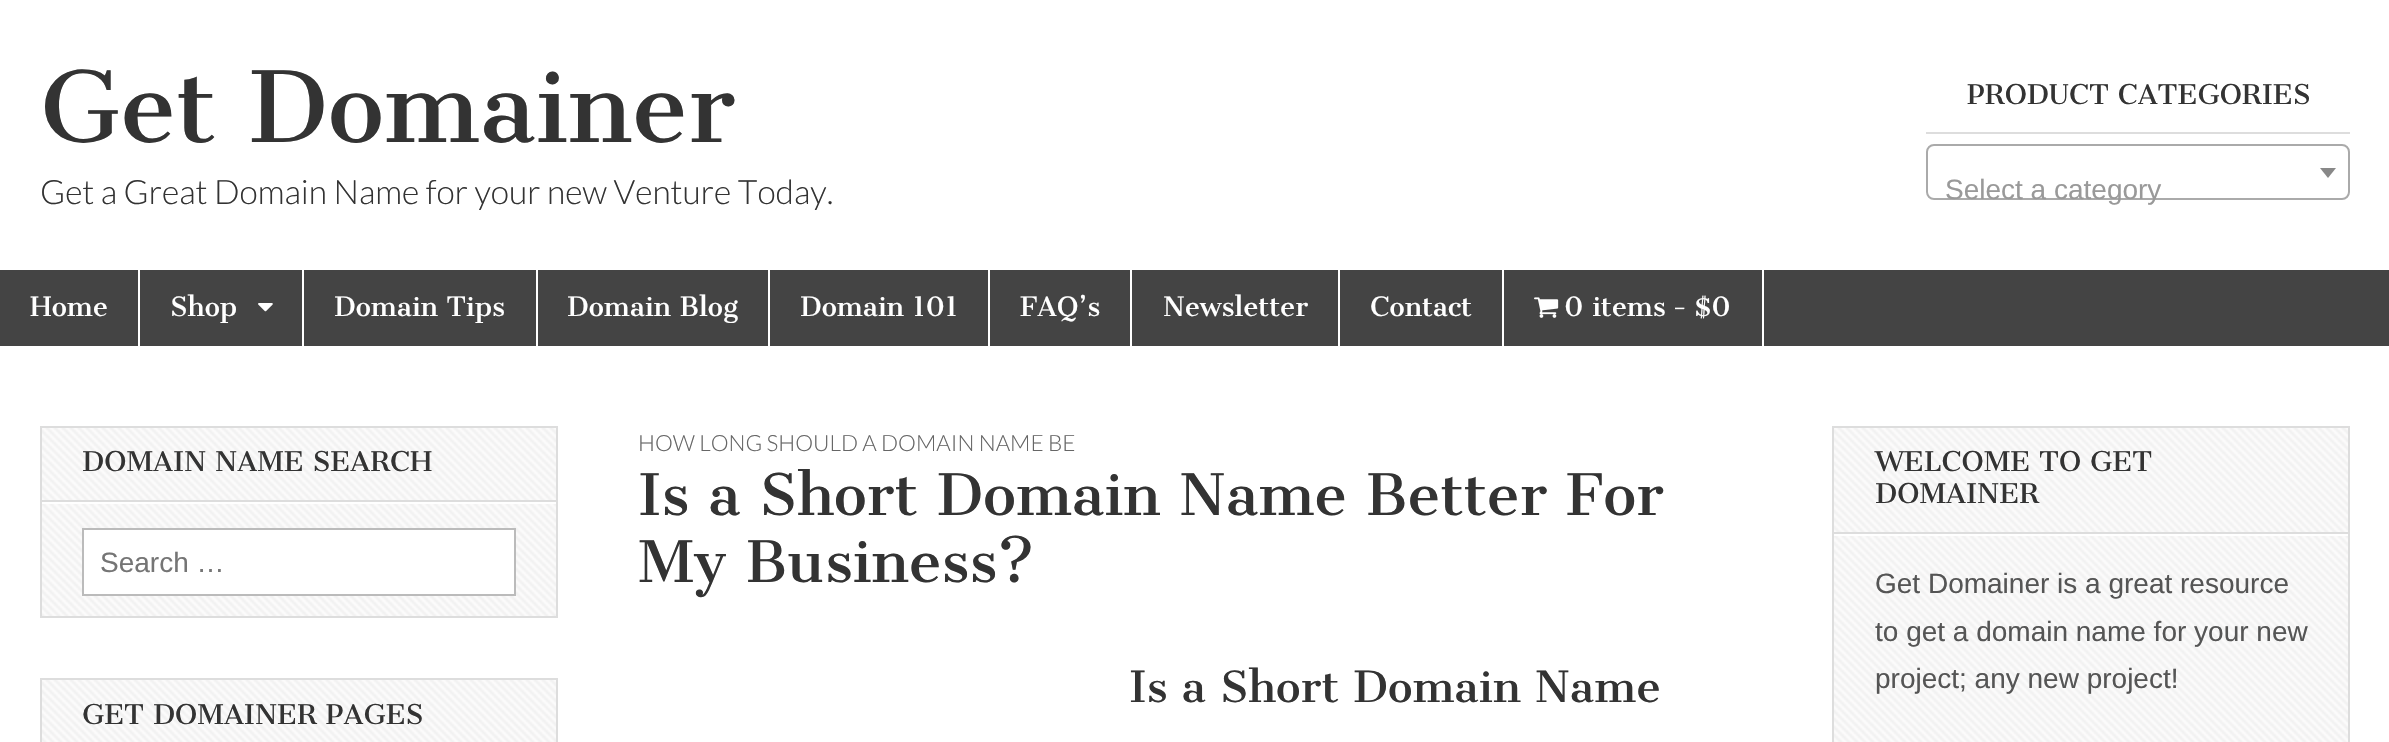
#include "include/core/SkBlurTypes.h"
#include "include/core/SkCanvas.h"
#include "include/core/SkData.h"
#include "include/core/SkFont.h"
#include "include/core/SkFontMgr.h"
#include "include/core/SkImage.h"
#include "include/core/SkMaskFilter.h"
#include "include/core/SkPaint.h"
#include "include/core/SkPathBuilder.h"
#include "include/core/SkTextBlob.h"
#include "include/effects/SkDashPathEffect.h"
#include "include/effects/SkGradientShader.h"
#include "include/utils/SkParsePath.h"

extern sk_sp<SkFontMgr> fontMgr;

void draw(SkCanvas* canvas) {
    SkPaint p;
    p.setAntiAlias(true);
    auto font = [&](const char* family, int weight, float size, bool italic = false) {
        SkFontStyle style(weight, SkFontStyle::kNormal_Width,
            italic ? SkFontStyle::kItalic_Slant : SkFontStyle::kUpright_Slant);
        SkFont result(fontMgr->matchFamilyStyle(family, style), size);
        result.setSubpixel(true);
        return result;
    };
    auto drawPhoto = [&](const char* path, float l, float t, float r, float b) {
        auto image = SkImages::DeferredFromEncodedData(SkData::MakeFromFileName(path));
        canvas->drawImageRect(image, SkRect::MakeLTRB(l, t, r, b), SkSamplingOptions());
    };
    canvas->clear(0xFFFFFFFF);
    auto font1 = font("Cantata One", 400, 96);
    p.setColor(0xFF333333);
    canvas->drawString("Get Domainer", 40, 142, font1, p);
    auto font2 = font("Lato", 300, 33.6f);
    canvas->drawString("Get a Great Domain Name for your new Venture Today.", 40, 204, font2, p);
    p.setColor(0xFFDDDDDD);
    canvas->drawRect(SkRect::MakeLTRB(1926, 132, 2350, 134), p);
    auto font3 = font("Cantata One", 400, 26.6f);
    p.setColor(0xFF333333);
    canvas->drawString("PRODUCT CATEGORIES", 1967, 104, font3, p);
    p.setStyle(SkPaint::kStroke_Style);
    p.setStrokeWidth(2);
    p.setColor(0xFFAAAAAA);
    canvas->drawRoundRect(SkRect::MakeLTRB(1927, 145, 2349, 199), 7, 7, p);
    p.setStyle(SkPaint::kFill_Style);
    p.setColor(0xFF888888);
    canvas->drawPath(SkPathBuilder().moveTo(2320, 168).lineTo(2336, 168).lineTo(2328, 178).close().detach(), p);
    auto font4 = font("Liberation Sans", 400, 28);
    p.setColor(0xFF999999);
    canvas->drawString("Select a category", 1945, 199, font4, p);
    p.setColor(0xFF444444);
    canvas->drawRect(SkRect::MakeLTRB(0, 270, 2389, 346), p);
    p.setColor(0xFFFFFFFF);
    canvas->drawRect(SkRect::MakeLTRB(138, 270, 140, 346), p);
    auto font5 = font("Cantata One", 400, 26);
    canvas->drawString("Home", 30, 316, font5, p);
    canvas->drawRect(SkRect::MakeLTRB(302, 270, 304, 346), p);
    canvas->drawString("Shop", 170, 316, font5, p);
    drawPhoto("media/1.png", 258, 303, 273, 312);
    canvas->drawRect(SkRect::MakeLTRB(536, 270, 538, 346), p);
    canvas->drawString("Domain Tips", 334, 316, font5, p);
    canvas->drawRect(SkRect::MakeLTRB(768, 270, 770, 346), p);
    canvas->drawString("Domain Blog", 567, 316, font5, p);
    canvas->drawRect(SkRect::MakeLTRB(988, 270, 990, 346), p);
    canvas->drawString("Domain 101", 800, 316, font5, p);
    canvas->drawRect(SkRect::MakeLTRB(1130, 270, 1132, 346), p);
    canvas->drawString("FAQ’s", 1020, 316, font5, p);
    canvas->drawRect(SkRect::MakeLTRB(1338, 270, 1340, 346), p);
    canvas->drawString("Newsletter", 1163, 316, font5, p);
    canvas->drawRect(SkRect::MakeLTRB(1502, 270, 1504, 346), p);
    canvas->drawString("Contact", 1370, 316, font5, p);
    canvas->drawRect(SkRect::MakeLTRB(1762, 270, 1764, 346), p);
    drawPhoto("media/2.png", 1534, 297, 1559, 318);
    {
        const struct { const char* s; float x, y; } items[] = {
            {"0 items", 1564, 316},
            {"-", 1672, 316},
            {"$0", 1694, 316},
        };
        for (auto [s, x, y] : items) {
            canvas->drawString(s, x, y, font5, p);
        }
    }
    drawPhoto("media/3.png", 42, 428, 556, 616);
    p.setStyle(SkPaint::kStroke_Style);
    p.setColor(0xFFDDDDDD);
    canvas->drawRect(SkRect::MakeLTRB(41, 427, 557, 617), p);
    p.setStyle(SkPaint::kFill_Style);
    p.setColor(0xFFFFFFFF);
    canvas->drawRect(SkRect::MakeLTRB(42, 502, 556, 504), p);
    p.setColor(0xFFDDDDDD);
    canvas->drawRect(SkRect::MakeLTRB(42, 500, 556, 502), p);
    p.setColor(0xFF333333);
    canvas->drawString("DOMAIN NAME SEARCH", 82, 471, font3, p);
    p.setColor(0xFFFFFFFF);
    canvas->drawRect(SkRect::MakeLTRB(83, 529, 515, 595), p);
    p.setStyle(SkPaint::kStroke_Style);
    p.setColor(0xFFBBBBBB);
    canvas->drawRect(SkRect::MakeLTRB(83, 529, 515, 595), p);
    p.setStyle(SkPaint::kFill_Style);
    p.setColor(0xFF757575);
    canvas->drawString("Search …", 100, 572, font4, p);
    drawPhoto("media/4.png", 42, 680, 556, 742);
    p.setStyle(SkPaint::kStroke_Style);
    p.setColor(0xFFDDDDDD);
    canvas->drawRect(SkRect::MakeLTRB(41, 679, 557, 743), p);
    p.setStyle(SkPaint::kFill_Style);
    p.setColor(0xFF333333);
    canvas->drawString("GET DOMAINER PAGES", 82, 724, font3, p);
    auto font6 = font("Lato", 300, 22.4f);
    p.setColor(0xFF666666);
    canvas->drawString("HOW LONG SHOULD A DOMAIN NAME BE", 638, 451, font6, p);
    auto font7 = font("Cantata One", 400, 56);
    p.setColor(0xFF333333);
    canvas->drawString("Is a Short Domain Name Better For", 638, 515, font7, p);
    canvas->drawString("My Business?", 638, 582, font7, p);
    auto font8 = font("Cantata One", 400, 42);
    canvas->drawString("Is a Short Domain Name", 1129, 702, font8, p);
    drawPhoto("media/5.png", 1834, 428, 2348, 742);
    p.setStyle(SkPaint::kStroke_Style);
    p.setColor(0xFFDDDDDD);
    canvas->drawRect(SkRect::MakeLTRB(1833, 427, 2349, 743), p);
    p.setStyle(SkPaint::kFill_Style);
    p.setColor(0xFFFFFFFF);
    canvas->drawRect(SkRect::MakeLTRB(1834, 534, 2348, 536), p);
    p.setColor(0xFFDDDDDD);
    canvas->drawRect(SkRect::MakeLTRB(1834, 532, 2348, 534), p);
    p.setColor(0xFF333333);
    canvas->drawString("WELCOME TO GET", 1875, 471, font3, p);
    canvas->drawString("DOMAINER", 1875, 503, font3, p);
    p.setColor(0xFF555555);
    {
        const struct { const char* s; float x, y; } items[] = {
            {"Get Domainer is a great resource", 1875, 593},
            {"to get a domain name for your new", 1875, 641},
            {"project; any new project!", 1875, 688},
        };
        for (auto [s, x, y] : items) {
            canvas->drawString(s, x, y, font4, p);
        }
    }
}
